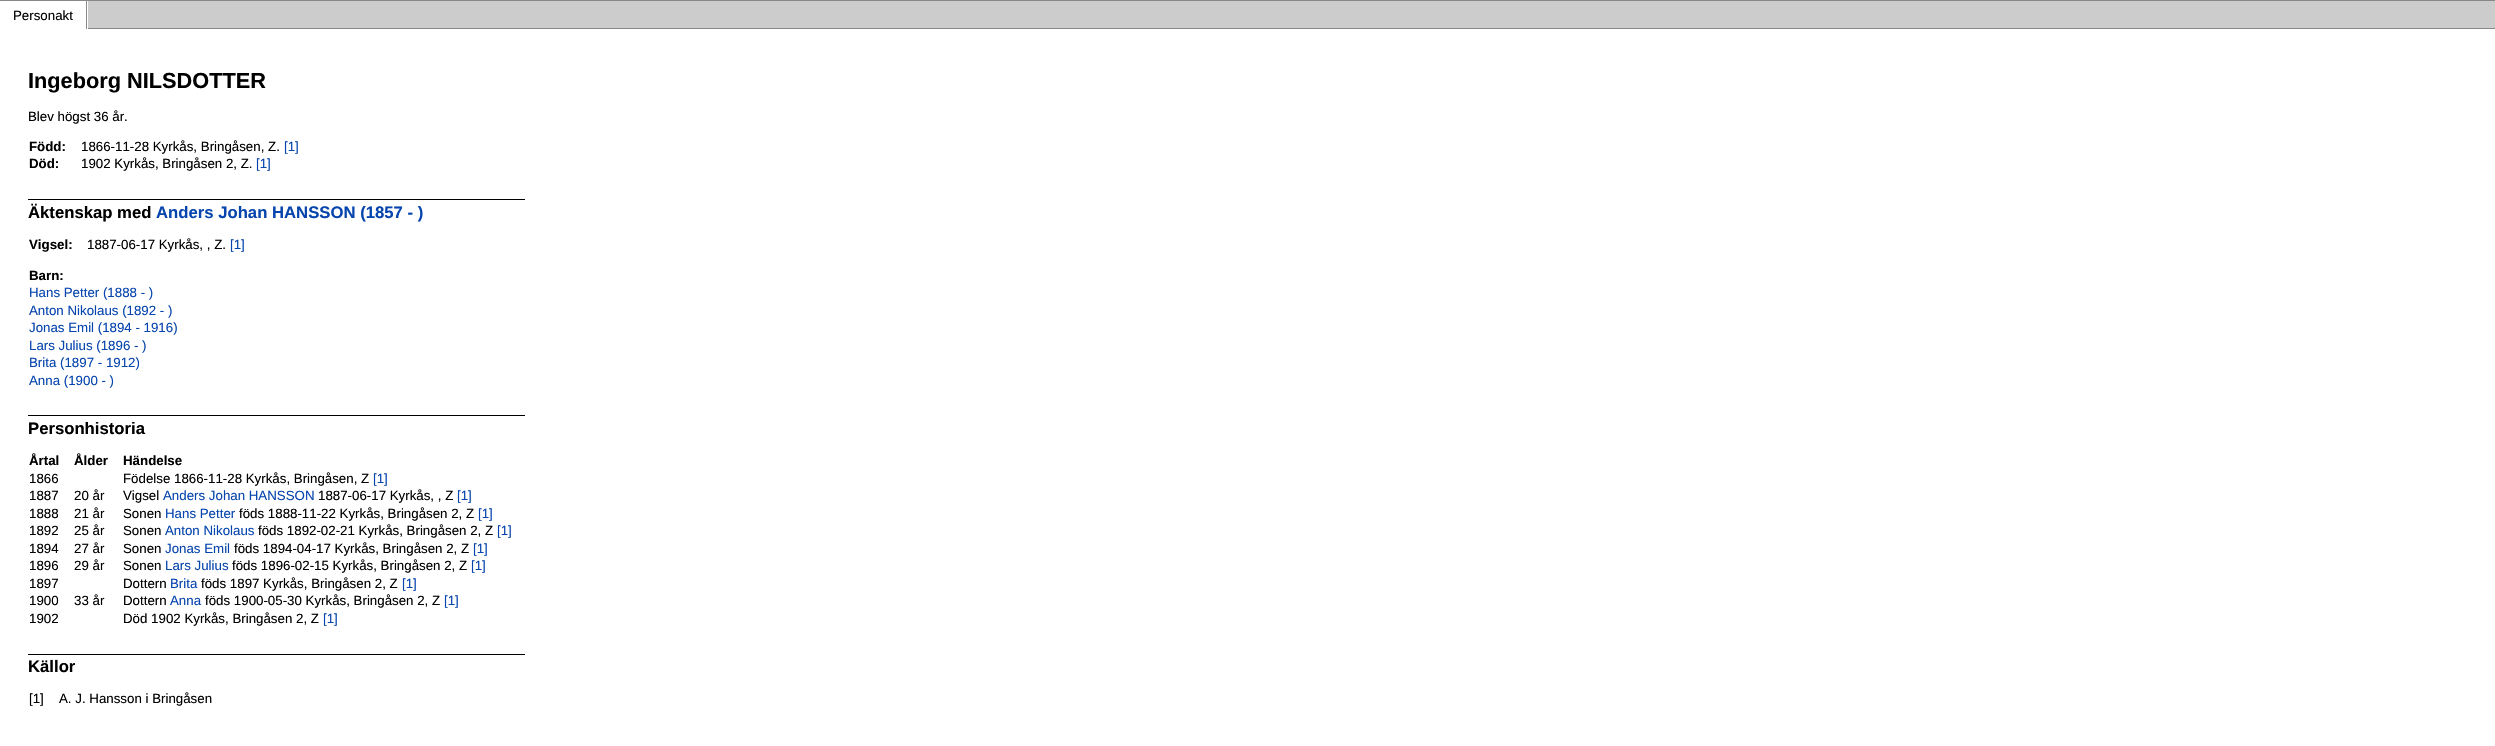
#include "include/core/SkBlurTypes.h"
#include "include/core/SkCanvas.h"
#include "include/core/SkData.h"
#include "include/core/SkFont.h"
#include "include/core/SkFontMgr.h"
#include "include/core/SkImage.h"
#include "include/core/SkMaskFilter.h"
#include "include/core/SkPaint.h"
#include "include/core/SkPathBuilder.h"
#include "include/core/SkTextBlob.h"
#include "include/effects/SkDashPathEffect.h"
#include "include/effects/SkGradientShader.h"
#include "include/utils/SkParsePath.h"

extern sk_sp<SkFontMgr> fontMgr;

void draw(SkCanvas* canvas) {
    SkPaint p;
    p.setAntiAlias(true);
    auto font = [&](const char* family, int weight, float size, bool italic = false) {
        SkFontStyle style(weight, SkFontStyle::kNormal_Width,
            italic ? SkFontStyle::kItalic_Slant : SkFontStyle::kUpright_Slant);
        SkFont result(fontMgr->matchFamilyStyle(family, style), size);
        result.setSubpixel(true);
        return result;
    };
    canvas->clear(0xFFFFFFFF);
    p.setColor(0xFF888888);
    canvas->drawRect(SkRect::MakeLTRB(0, 0, 2495, 1), p);
    canvas->drawRect(SkRect::MakeLTRB(86, 0, 87, 29), p);
    auto font1 = font("Liberation Sans", 400, 13.3f);
    p.setColor(0xFF000000);
    canvas->drawString("Personakt", 13, 20, font1, p);
    p.setColor(0xFFCCCCCC);
    canvas->drawRect(SkRect::MakeLTRB(88, 1, 2495, 28), p);
    p.setColor(0xFF888888);
    canvas->drawRect(SkRect::MakeLTRB(88, 28, 2495, 29), p);
    auto font2 = font("Liberation Sans", 700, 21.75f);
    p.setColor(0xFF000000);
    canvas->drawString("Ingeborg NILSDOTTER", 28, 88, font2, p);
    canvas->drawString("Blev högst 36 år.", 28, 121, font1, p);
    auto font3 = font("Liberation Sans", 700, 13.3f);
    canvas->drawString("Född:", 29, 151, font3, p);
    canvas->drawString("1866-11-28 Kyrkås, Bringåsen, Z.", 81, 151, font1, p);
    p.setColor(0xFF0645AD);
    canvas->drawString("[1]", 284, 151, font1, p);
    p.setColor(0xFF000000);
    canvas->drawString("Död:", 29, 168, font3, p);
    canvas->drawString("1902 Kyrkås, Bringåsen 2, Z.", 81, 168, font1, p);
    p.setColor(0xFF0645AD);
    canvas->drawString("[1]", 256, 168, font1, p);
    p.setColor(0xFF000000);
    canvas->drawRect(SkRect::MakeLTRB(28, 199, 525, 200), p);
    auto font4 = font("Liberation Sans", 700, 16.7f);
    canvas->drawString("Äktenskap med", 28, 218, font4, p);
    p.setColor(0xFF0645AD);
    canvas->drawString("Anders Johan HANSSON (1857 - )", 156, 218, font4, p);
    p.setColor(0xFF000000);
    canvas->drawString("Vigsel:", 29, 249, font3, p);
    canvas->drawString("1887-06-17 Kyrkås, , Z.", 87, 249, font1, p);
    p.setColor(0xFF0645AD);
    canvas->drawString("[1]", 230, 249, font1, p);
    p.setColor(0xFF000000);
    canvas->drawString("Barn:", 29, 280, font3, p);
    p.setColor(0xFF0645AD);
    {
        const struct { const char* s; float x, y; } items[] = {
            {"Hans Petter (1888 - )", 29, 297},
            {"Anton Nikolaus (1892 - )", 29, 315},
            {"Jonas Emil (1894 - 1916)", 29, 332},
            {"Lars Julius (1896 - )", 29, 350},
            {"Brita (1897 - 1912)", 29, 367},
            {"Anna (1900 - )", 29, 385},
        };
        for (auto [s, x, y] : items) {
            canvas->drawString(s, x, y, font1, p);
        }
    }
    p.setColor(0xFF000000);
    canvas->drawRect(SkRect::MakeLTRB(28, 415, 525, 416), p);
    canvas->drawString("Personhistoria", 28, 434, font4, p);
    {
        const struct { const char* s; float x, y; } items[] = {
            {"Årtal", 29, 465},
            {"Ålder", 74, 465},
            {"Händelse", 123, 465},
        };
        for (auto [s, x, y] : items) {
            canvas->drawString(s, x, y, font3, p);
        }
    }
    canvas->drawString("1866", 29, 483, font1, p);
    canvas->drawString("Födelse 1866-11-28 Kyrkås, Bringåsen, Z", 123, 483, font1, p);
    p.setColor(0xFF0645AD);
    canvas->drawString("[1]", 373, 483, font1, p);
    p.setColor(0xFF000000);
    {
        const struct { const char* s; float x, y; } items[] = {
            {"1887", 29, 500},
            {"20 år", 74, 500},
            {"Vigsel", 123, 500},
        };
        for (auto [s, x, y] : items) {
            canvas->drawString(s, x, y, font1, p);
        }
    }
    p.setColor(0xFF0645AD);
    canvas->drawString("Anders Johan HANSSON", 163, 500, font1, p);
    p.setColor(0xFF000000);
    canvas->drawString("1887-06-17 Kyrkås, , Z", 318, 500, font1, p);
    p.setColor(0xFF0645AD);
    canvas->drawString("[1]", 457, 500, font1, p);
    p.setColor(0xFF000000);
    {
        const struct { const char* s; float x, y; } items[] = {
            {"1888", 29, 518},
            {"21 år", 74, 518},
            {"Sonen", 123, 518},
        };
        for (auto [s, x, y] : items) {
            canvas->drawString(s, x, y, font1, p);
        }
    }
    p.setColor(0xFF0645AD);
    canvas->drawString("Hans Petter", 165, 518, font1, p);
    p.setColor(0xFF000000);
    canvas->drawString("föds 1888-11-22 Kyrkås, Bringåsen 2, Z", 239, 518, font1, p);
    p.setColor(0xFF0645AD);
    canvas->drawString("[1]", 478, 518, font1, p);
    p.setColor(0xFF000000);
    {
        const struct { const char* s; float x, y; } items[] = {
            {"1892", 29, 535},
            {"25 år", 74, 535},
            {"Sonen", 123, 535},
        };
        for (auto [s, x, y] : items) {
            canvas->drawString(s, x, y, font1, p);
        }
    }
    p.setColor(0xFF0645AD);
    canvas->drawString("Anton Nikolaus", 165, 535, font1, p);
    p.setColor(0xFF000000);
    canvas->drawString("föds 1892-02-21 Kyrkås, Bringåsen 2, Z", 258, 535, font1, p);
    p.setColor(0xFF0645AD);
    canvas->drawString("[1]", 497, 535, font1, p);
    p.setColor(0xFF000000);
    {
        const struct { const char* s; float x, y; } items[] = {
            {"1894", 29, 553},
            {"27 år", 74, 553},
            {"Sonen", 123, 553},
        };
        for (auto [s, x, y] : items) {
            canvas->drawString(s, x, y, font1, p);
        }
    }
    p.setColor(0xFF0645AD);
    canvas->drawString("Jonas Emil", 165, 553, font1, p);
    p.setColor(0xFF000000);
    canvas->drawString("föds 1894-04-17 Kyrkås, Bringåsen 2, Z", 234, 553, font1, p);
    p.setColor(0xFF0645AD);
    canvas->drawString("[1]", 473, 553, font1, p);
    p.setColor(0xFF000000);
    {
        const struct { const char* s; float x, y; } items[] = {
            {"1896", 29, 570},
            {"29 år", 74, 570},
            {"Sonen", 123, 570},
        };
        for (auto [s, x, y] : items) {
            canvas->drawString(s, x, y, font1, p);
        }
    }
    p.setColor(0xFF0645AD);
    canvas->drawString("Lars Julius", 165, 570, font1, p);
    p.setColor(0xFF000000);
    canvas->drawString("föds 1896-02-15 Kyrkås, Bringåsen 2, Z", 232, 570, font1, p);
    p.setColor(0xFF0645AD);
    canvas->drawString("[1]", 471, 570, font1, p);
    p.setColor(0xFF000000);
    canvas->drawString("1897", 29, 588, font1, p);
    canvas->drawString("Dottern", 123, 588, font1, p);
    p.setColor(0xFF0645AD);
    canvas->drawString("Brita", 170, 588, font1, p);
    p.setColor(0xFF000000);
    canvas->drawString("föds 1897 Kyrkås, Bringåsen 2, Z", 201, 588, font1, p);
    p.setColor(0xFF0645AD);
    canvas->drawString("[1]", 402, 588, font1, p);
    p.setColor(0xFF000000);
    {
        const struct { const char* s; float x, y; } items[] = {
            {"1900", 29, 605},
            {"33 år", 74, 605},
            {"Dottern", 123, 605},
        };
        for (auto [s, x, y] : items) {
            canvas->drawString(s, x, y, font1, p);
        }
    }
    p.setColor(0xFF0645AD);
    canvas->drawString("Anna", 170, 605, font1, p);
    p.setColor(0xFF000000);
    canvas->drawString("föds 1900-05-30 Kyrkås, Bringåsen 2, Z", 205, 605, font1, p);
    p.setColor(0xFF0645AD);
    canvas->drawString("[1]", 444, 605, font1, p);
    p.setColor(0xFF000000);
    canvas->drawString("1902", 29, 623, font1, p);
    canvas->drawString("Död 1902 Kyrkås, Bringåsen 2, Z", 123, 623, font1, p);
    p.setColor(0xFF0645AD);
    canvas->drawString("[1]", 323, 623, font1, p);
    p.setColor(0xFF000000);
    canvas->drawRect(SkRect::MakeLTRB(28, 654, 525, 655), p);
    canvas->drawString("Källor", 28, 672, font4, p);
    canvas->drawString("[1]", 29, 703, font1, p);
    canvas->drawString("A. J. Hansson i Bringåsen", 59, 703, font1, p);
}
